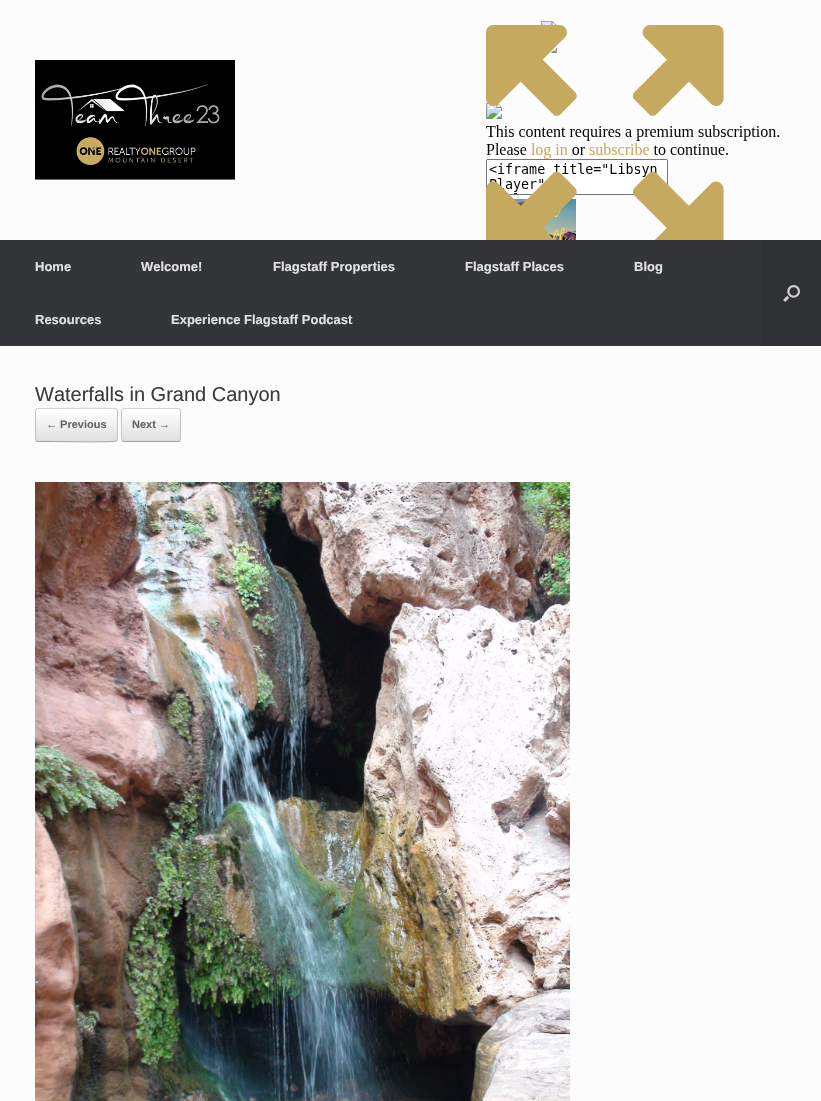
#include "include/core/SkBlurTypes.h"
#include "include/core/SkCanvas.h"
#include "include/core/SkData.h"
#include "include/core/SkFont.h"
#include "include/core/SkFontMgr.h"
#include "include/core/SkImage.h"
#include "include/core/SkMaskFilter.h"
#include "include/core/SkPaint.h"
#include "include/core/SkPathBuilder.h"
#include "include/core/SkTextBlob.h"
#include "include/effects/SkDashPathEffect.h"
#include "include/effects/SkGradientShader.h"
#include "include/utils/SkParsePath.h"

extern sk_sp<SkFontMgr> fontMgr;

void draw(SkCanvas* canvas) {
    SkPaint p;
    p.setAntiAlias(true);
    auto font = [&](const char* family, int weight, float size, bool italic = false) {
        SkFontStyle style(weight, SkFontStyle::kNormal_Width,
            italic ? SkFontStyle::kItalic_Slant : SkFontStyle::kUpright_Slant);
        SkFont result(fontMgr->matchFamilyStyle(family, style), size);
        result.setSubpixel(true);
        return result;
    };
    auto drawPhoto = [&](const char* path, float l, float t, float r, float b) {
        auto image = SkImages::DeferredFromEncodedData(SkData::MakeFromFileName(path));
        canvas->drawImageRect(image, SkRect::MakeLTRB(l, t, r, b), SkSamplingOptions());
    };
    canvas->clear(0xFFFCFCFC);
    drawPhoto("media/1.png", 35, 60, 235, 180);
    drawPhoto("media/2.png", 486, 21, 780, 240);
    p.setColor(0xFF343538);
    canvas->drawRect(SkRect::MakeLTRB(0, 240, 762, 346), p);
    auto font1 = font("Liberation Sans", 700, 13);
    p.setColor(0xFFE2E2E2);
    {
        const struct { const char* s; float x, y; } items[] = {
            {"Home", 35, 271},
            {"Welcome!", 141, 271},
            {"Flagstaff Properties", 273, 271},
            {"Flagstaff Places", 465, 271},
            {"Blog", 634, 271},
            {"Resources", 35, 324},
            {"Experience Flagstaff Podcast", 171, 324},
        };
        for (auto [s, x, y] : items) {
            canvas->drawString(s, x, y, font1, p);
        }
    }
    p.setColor(0xFF303134);
    canvas->drawRect(SkRect::MakeLTRB(762, 240, 821, 346), p);
    drawPhoto("media/3.png", 783, 285, 800, 302);
    auto font2 = font("Liberation Sans", 400, 20);
    p.setColor(0xFF3B3B3B);
    canvas->drawString("Waterfalls in Grand Canyon", 35, 401, font2, p);
    canvas->save();
    canvas->clipPath(SkPathBuilder().moveTo(38, 408).lineTo(115, 408).cubicTo(116.5f, 408, 118, 409.5f, 118, 411).lineTo(118, 439).cubicTo(118, 440.5f, 116.5f, 442, 115, 442).lineTo(38, 442).cubicTo(36.5f, 442, 35, 440.5f, 35, 439).lineTo(35, 411).cubicTo(35, 409.5f, 36.5f, 408, 38, 408).close().detach(), true);
    {
        const SkColor colors[] = {0xFFDFDFDF, 0xFFFFFFFF};
        const float stops[] = {0, 1};
        const SkPoint ends[] = {{36, 409}, {36, 377}};
        p.setShader(SkGradientShader::MakeLinear(ends, colors, stops, 2, SkTileMode::kClamp));
        p.setAlpha(255);
    }
    canvas->drawRect(SkRect::MakeLTRB(35, 408, 118, 409), p);
    {
        const SkColor colors[] = {0xFFDFDFDF, 0xFFFFFFFF};
        const float stops[] = {0, 1};
        const SkPoint ends[] = {{36, 441}, {36, 409}};
        p.setShader(SkGradientShader::MakeLinear(ends, colors, stops, 2, SkTileMode::kClamp));
        p.setAlpha(255);
    }
    canvas->drawRect(SkRect::MakeLTRB(35, 409, 118, 441), p);
    {
        const SkColor colors[] = {0xFFDFDFDF, 0xFFFFFFFF};
        const float stops[] = {0, 1};
        const SkPoint ends[] = {{36, 473}, {36, 441}};
        p.setShader(SkGradientShader::MakeLinear(ends, colors, stops, 2, SkTileMode::kClamp));
        p.setAlpha(255);
    }
    canvas->drawRect(SkRect::MakeLTRB(35, 441, 118, 442), p);
    canvas->restore();
    p.setStyle(SkPaint::kStroke_Style);
    p.setStrokeWidth(1);
    p.setShader(nullptr);
    p.setColor(0xFFD2D2D2);
    canvas->drawPath(SkPathBuilder().moveTo(36, 409).lineTo(38, 408.5f).lineTo(51, 408.5f).cubicTo(58, 408.5f, 114.5f, 407.5f, 116.5f, 409).lineTo(117, 409).detach(), p);
    p.setColor(0xFFC3C3C3);
    canvas->drawPath(SkPathBuilder().moveTo(117, 409).cubicTo(117, 409.5f, 117.5f, 410.5f, 117.5f, 411).lineTo(117.5f, 439).cubicTo(117.5f, 439.5f, 117, 440.5f, 117, 441).detach(), p);
    p.setColor(0xFF9F9F9F);
    canvas->drawPath(SkPathBuilder().moveTo(117, 441).lineTo(116.5f, 441).cubicTo(114.5f, 442.5f, 58, 441.5f, 51, 441.5f).lineTo(38, 441.5f).lineTo(36, 441).detach(), p);
    p.setColor(0xFFC3C3C3);
    canvas->drawPath(SkPathBuilder().moveTo(36, 441).cubicTo(36, 440.5f, 35.5f, 439.5f, 35.5f, 439).lineTo(35.5f, 411).cubicTo(35.5f, 410.5f, 36, 409.5f, 36, 409).detach(), p);
    auto font3 = font("Liberation Sans", 700, 11);
    p.setStyle(SkPaint::kFill_Style);
    p.setColor(0xFF646464);
    canvas->drawString("← Previous", 46, 428, font3, p);
    canvas->save();
    canvas->clipPath(SkPathBuilder().moveTo(124, 408).lineTo(178, 408).cubicTo(179.5f, 408, 181, 409.5f, 181, 411).lineTo(181, 439).cubicTo(181, 440.5f, 179.5f, 442, 178, 442).lineTo(124, 442).cubicTo(122.5f, 442, 121, 440.5f, 121, 439).lineTo(121, 411).cubicTo(121, 409.5f, 122.5f, 408, 124, 408).close().detach(), true);
    {
        const SkColor colors[] = {0xFFDFDFDF, 0xFFFFFFFF};
        const float stops[] = {0, 1};
        const SkPoint ends[] = {{122, 441}, {122, 409}};
        p.setShader(SkGradientShader::MakeLinear(ends, colors, stops, 2, SkTileMode::kClamp));
        p.setAlpha(255);
    }
    canvas->drawRect(SkRect::MakeLTRB(121, 409, 181, 441), p);
    canvas->restore();
    p.setStyle(SkPaint::kStroke_Style);
    p.setShader(nullptr);
    p.setColor(0xFFD2D2D2);
    canvas->drawPath(SkPathBuilder().moveTo(122, 409).lineTo(124, 408.5f).lineTo(178, 408.5f).lineTo(180, 409).detach(), p);
    p.setColor(0xFFC3C3C3);
    canvas->drawPath(SkPathBuilder().moveTo(180, 409).cubicTo(180, 409.5f, 180.5f, 410.5f, 180.5f, 411).lineTo(180.5f, 439).cubicTo(180.5f, 439.5f, 180, 440.5f, 180, 441).detach(), p);
    p.setColor(0xFF9F9F9F);
    canvas->drawPath(SkPathBuilder().moveTo(180, 441).lineTo(178, 441.5f).lineTo(124, 441.5f).lineTo(122, 441).detach(), p);
    p.setColor(0xFFC3C3C3);
    canvas->drawPath(SkPathBuilder().moveTo(122, 441).cubicTo(122, 440.5f, 121.5f, 439.5f, 121.5f, 439).lineTo(121.5f, 411).cubicTo(121.5f, 410.5f, 122, 409.5f, 122, 409).detach(), p);
    p.setStyle(SkPaint::kFill_Style);
    p.setColor(0xFF646464);
    canvas->drawString("Next →", 132, 428, font3, p);
    drawPhoto("media/4.png", 35, 482, 570, 1101);
}
